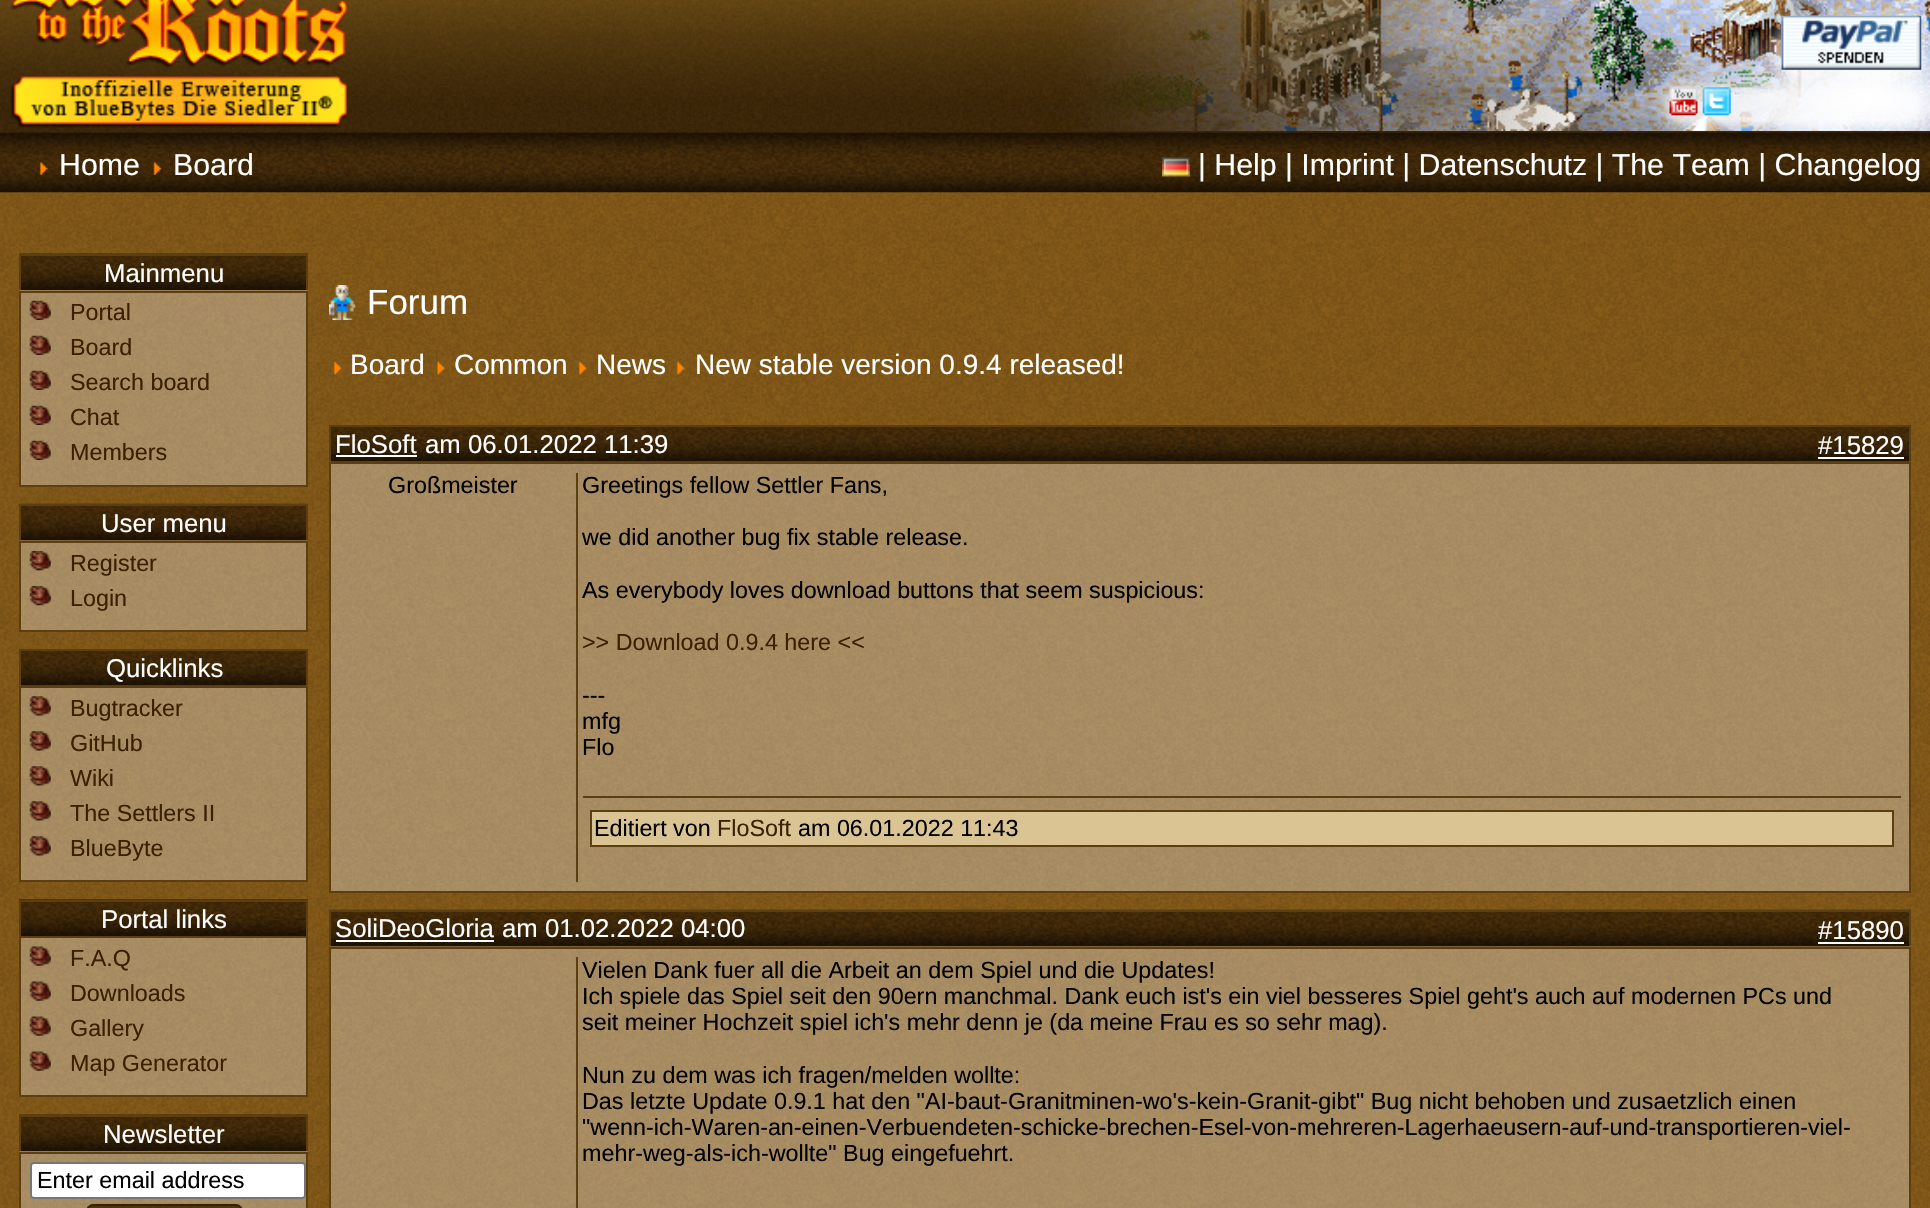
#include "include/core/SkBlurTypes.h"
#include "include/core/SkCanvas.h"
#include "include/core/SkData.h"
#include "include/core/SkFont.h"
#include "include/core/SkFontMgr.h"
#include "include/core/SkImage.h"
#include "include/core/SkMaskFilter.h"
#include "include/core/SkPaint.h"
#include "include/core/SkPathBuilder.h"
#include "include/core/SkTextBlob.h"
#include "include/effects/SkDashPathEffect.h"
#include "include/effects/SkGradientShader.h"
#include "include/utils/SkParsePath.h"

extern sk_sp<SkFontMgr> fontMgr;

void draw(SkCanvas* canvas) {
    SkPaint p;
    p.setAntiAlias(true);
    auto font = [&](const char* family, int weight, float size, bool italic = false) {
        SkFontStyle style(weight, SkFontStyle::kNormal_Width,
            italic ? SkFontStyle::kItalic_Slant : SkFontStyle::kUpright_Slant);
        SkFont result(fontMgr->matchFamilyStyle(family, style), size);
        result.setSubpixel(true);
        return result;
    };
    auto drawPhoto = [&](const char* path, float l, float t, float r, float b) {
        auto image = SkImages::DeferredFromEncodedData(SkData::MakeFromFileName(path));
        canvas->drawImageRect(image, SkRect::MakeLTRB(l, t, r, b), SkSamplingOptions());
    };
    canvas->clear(0xFFFFFFFF);
    drawPhoto("media/1.png", 0, 192, 1930, 1208);
    drawPhoto("media/2.png", 0, 0, 1930, 193);
    drawPhoto("media/3.png", 962, 0, 1930, 131);
    drawPhoto("media/4.png", 10, 0, 349, 128);
    drawPhoto("media/5.png", 1781, 15, 1922, 70);
    drawPhoto("media/6.png", 1669, 87, 1698, 116);
    drawPhoto("media/7.png", 1702, 87, 1731, 116);
    drawPhoto("media/8.png", 39, 162, 48, 175);
    auto font1 = font("Liberation Sans", 400, 30.3f);
    p.setColor(0xFFFFFFFF);
    canvas->drawString("Home", 59, 175, font1, p);
    drawPhoto("media/9.png", 153, 162, 162, 175);
    canvas->drawString("Board", 173, 175, font1, p);
    drawPhoto("media/10.png", 1162, 157, 1190, 177);
    canvas->drawString("| Help | Imprint | Datenschutz | The Team | Changelog", 1198, 175, font1, p);
    drawPhoto("media/11.png", 19, 253, 308, 291);
    {
        const struct { float l, t, r, b; SkColor color; } items[] = {
            {19, 254, 308, 256, 0xFF5B3E12},
            {306, 254, 308, 291, 0xFF5B3E12},
            {19, 254, 21, 291, 0xFF5B3E12},
        };
        for (auto [l, t, r, b, color] : items) {
            p.setColor(color);
            canvas->drawRect(SkRect::MakeLTRB(l, t, r, b), p);
        }
    }
    auto font2 = font("Liberation Sans", 400, 25.75f);
    p.setColor(0xFFFFFFFF);
    canvas->drawString("Mainmenu", 104, 282, font2, p);
    drawPhoto("media/12.png", 19, 290, 308, 485);
    p.setStyle(SkPaint::kStroke_Style);
    p.setStrokeWidth(2);
    p.setColor(0xFF5B3E12);
    canvas->drawRect(SkRect::MakeLTRB(20, 292, 307, 486), p);
    drawPhoto("media/13.png", 29, 300, 51, 320);
    auto font3 = font("Liberation Sans", 400, 23.33f);
    p.setStyle(SkPaint::kFill_Style);
    p.setColor(0xFF392000);
    canvas->drawString("Portal", 70, 320, font3, p);
    drawPhoto("media/14.png", 29, 335, 51, 355);
    canvas->drawString("Board", 70, 355, font3, p);
    drawPhoto("media/15.png", 29, 370, 51, 390);
    canvas->drawString("Search board", 70, 390, font3, p);
    drawPhoto("media/16.png", 29, 405, 51, 425);
    canvas->drawString("Chat", 70, 425, font3, p);
    drawPhoto("media/17.png", 29, 440, 51, 460);
    canvas->drawString("Members", 70, 460, font3, p);
    drawPhoto("media/18.png", 19, 503, 308, 541);
    {
        const struct { float l, t, r, b; SkColor color; } items[] = {
            {19, 504, 308, 506, 0xFF5B3E12},
            {306, 504, 308, 541, 0xFF5B3E12},
            {19, 504, 21, 541, 0xFF5B3E12},
        };
        for (auto [l, t, r, b, color] : items) {
            p.setColor(color);
            canvas->drawRect(SkRect::MakeLTRB(l, t, r, b), p);
        }
    }
    p.setColor(0xFFFFFFFF);
    canvas->drawString("User menu", 101, 532, font2, p);
    drawPhoto("media/19.png", 19, 540, 308, 630);
    p.setStyle(SkPaint::kStroke_Style);
    p.setColor(0xFF5B3E12);
    canvas->drawRect(SkRect::MakeLTRB(20, 542, 307, 631), p);
    drawPhoto("media/20.png", 29, 551, 51, 571);
    p.setStyle(SkPaint::kFill_Style);
    p.setColor(0xFF392000);
    canvas->drawString("Register", 70, 571, font3, p);
    drawPhoto("media/21.png", 29, 586, 51, 606);
    canvas->drawString("Login", 70, 606, font3, p);
    drawPhoto("media/22.png", 21, 651, 306, 686);
    {
        const struct { float l, t, r, b; SkColor color; } items[] = {
            {19, 649, 308, 651, 0xFF5B3E12},
            {306, 649, 308, 686, 0xFF5B3E12},
            {19, 649, 21, 686, 0xFF5B3E12},
        };
        for (auto [l, t, r, b, color] : items) {
            p.setColor(color);
            canvas->drawRect(SkRect::MakeLTRB(l, t, r, b), p);
        }
    }
    p.setColor(0xFFFFFFFF);
    canvas->drawString("Quicklinks", 106, 677, font2, p);
    drawPhoto("media/23.png", 19, 685, 308, 880);
    p.setStyle(SkPaint::kStroke_Style);
    p.setColor(0xFF5B3E12);
    canvas->drawRect(SkRect::MakeLTRB(20, 687, 307, 881), p);
    drawPhoto("media/24.png", 29, 696, 51, 716);
    p.setStyle(SkPaint::kFill_Style);
    p.setColor(0xFF392000);
    canvas->drawString("Bugtracker", 70, 716, font3, p);
    drawPhoto("media/25.png", 29, 731, 51, 751);
    canvas->drawString("GitHub", 70, 751, font3, p);
    drawPhoto("media/26.png", 29, 766, 51, 786);
    canvas->drawString("Wiki", 70, 786, font3, p);
    drawPhoto("media/27.png", 29, 801, 51, 821);
    canvas->drawString("The Settlers II", 70, 821, font3, p);
    drawPhoto("media/28.png", 29, 836, 51, 856);
    canvas->drawString("BlueByte", 70, 856, font3, p);
    drawPhoto("media/29.png", 19, 899, 308, 936);
    {
        const struct { float l, t, r, b; SkColor color; } items[] = {
            {19, 900, 308, 902, 0xFF5B3E12},
            {306, 900, 308, 936, 0xFF5B3E12},
            {19, 900, 21, 936, 0xFF5B3E12},
        };
        for (auto [l, t, r, b, color] : items) {
            p.setColor(color);
            canvas->drawRect(SkRect::MakeLTRB(l, t, r, b), p);
        }
    }
    p.setColor(0xFFFFFFFF);
    canvas->drawString("Portal links", 101, 928, font2, p);
    drawPhoto("media/30.png", 21, 938, 306, 1095);
    p.setStyle(SkPaint::kStroke_Style);
    p.setColor(0xFF5B3E12);
    canvas->drawRect(SkRect::MakeLTRB(20, 937, 307, 1096), p);
    drawPhoto("media/31.png", 29, 946, 51, 966);
    p.setStyle(SkPaint::kFill_Style);
    p.setColor(0xFF392000);
    canvas->drawString("F.A.Q", 70, 966, font3, p);
    drawPhoto("media/32.png", 29, 981, 51, 1001);
    canvas->drawString("Downloads", 70, 1001, font3, p);
    drawPhoto("media/33.png", 29, 1016, 51, 1036);
    canvas->drawString("Gallery", 70, 1036, font3, p);
    drawPhoto("media/34.png", 29, 1051, 51, 1071);
    canvas->drawString("Map Generator", 70, 1071, font3, p);
    drawPhoto("media/35.png", 19, 1114, 308, 1152);
    {
        const struct { float l, t, r, b; SkColor color; } items[] = {
            {19, 1115, 308, 1117, 0xFF5B3E12},
            {306, 1115, 308, 1152, 0xFF5B3E12},
            {19, 1115, 21, 1152, 0xFF5B3E12},
        };
        for (auto [l, t, r, b, color] : items) {
            p.setColor(color);
            canvas->drawRect(SkRect::MakeLTRB(l, t, r, b), p);
        }
    }
    p.setColor(0xFFFFFFFF);
    canvas->drawString("Newsletter", 103, 1143, font2, p);
    drawPhoto("media/36.png", 19, 1151, 308, 1208);
    p.setStyle(SkPaint::kStroke_Style);
    p.setColor(0xFF5B3E12);
    canvas->drawRect(SkRect::MakeLTRB(20, 1153, 307, 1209), p);
    p.setStyle(SkPaint::kFill_Style);
    p.setColor(0xFFFFFFFF);
    canvas->drawRoundRect(SkRect::MakeLTRB(31, 1163, 305, 1198), 3, 3, p);
    p.setStyle(SkPaint::kStroke_Style);
    p.setColor(0xFF767676);
    canvas->drawRoundRect(SkRect::MakeLTRB(31, 1163, 305, 1198), 3, 3, p);
    p.setStyle(SkPaint::kFill_Style);
    p.setColor(0xFF000000);
    canvas->drawString("Enter email address", 37, 1188, font3, p);
    drawPhoto("media/37.png", 87, 1203, 242, 1208);
    p.setStyle(SkPaint::kStroke_Style);
    p.setColor(0xFF392000);
    canvas->drawRoundRect(SkRect::MakeLTRB(87, 1205, 242, 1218), 8, 8, p);
    drawPhoto("media/38.png", 329, 285, 356, 320);
    auto font4 = font("Liberation Sans", 400, 35);
    p.setStyle(SkPaint::kFill_Style);
    p.setColor(0xFFFFFFFF);
    canvas->drawString("Forum", 367, 314, font4, p);
    drawPhoto("media/39.png", 333, 361, 342, 375);
    auto font5 = font("Liberation Sans", 400, 28);
    canvas->drawString("Board", 350, 374, font5, p);
    drawPhoto("media/40.png", 437, 361, 445, 375);
    canvas->drawString("Common", 454, 374, font5, p);
    drawPhoto("media/41.png", 578, 361, 587, 375);
    canvas->drawString("News", 596, 374, font5, p);
    drawPhoto("media/42.png", 676, 361, 685, 375);
    canvas->drawString("New stable version 0.9.4 released!", 695, 374, font5, p);
    drawPhoto("media/43.png", 331, 427, 1909, 462);
    {
        const struct { float l, t, r, b; SkColor color; } items[] = {
            {329, 425, 1911, 427, 0xFF5B3E12},
            {1909, 425, 1911, 462, 0xFF5B3E12},
            {329, 425, 331, 462, 0xFF5B3E12},
        };
        for (auto [l, t, r, b, color] : items) {
            p.setColor(color);
            canvas->drawRect(SkRect::MakeLTRB(l, t, r, b), p);
        }
    }
    p.setColor(0xFFFFFFFF);
    canvas->drawString("FloSoft", 335, 453, font2, p);
    canvas->drawRect(SkRect::MakeLTRB(336, 455, 417, 457), p);
    canvas->drawString("am 06.01.2022 11:39", 425, 453, font2, p);
    canvas->drawString("#15829", 1818, 454, font2, p);
    canvas->drawRect(SkRect::MakeLTRB(1818, 457, 1904, 459), p);
    drawPhoto("media/44.png", 329, 461, 1911, 891);
    p.setStyle(SkPaint::kStroke_Style);
    p.setColor(0xFF5B3E12);
    canvas->drawRect(SkRect::MakeLTRB(330, 463, 1910, 892), p);
    p.setStyle(SkPaint::kFill_Style);
    p.setColor(0xFF000000);
    canvas->drawString("Großmeister", 388, 493, font3, p);
    p.setColor(0xFF5B3E12);
    canvas->drawRect(SkRect::MakeLTRB(576, 473, 578, 882), p);
    p.setColor(0xFF000000);
    {
        const struct { const char* s; float x, y; } items[] = {
            {"Greetings fellow Settler Fans,", 582, 493},
            {"we did another bug fix stable release.", 582, 545},
            {"As everybody loves download buttons that seem suspicious:", 582, 598},
        };
        for (auto [s, x, y] : items) {
            canvas->drawString(s, x, y, font3, p);
        }
    }
    p.setColor(0xFF392000);
    canvas->drawString(">> Download 0.9.4 here <<", 582, 650, font3, p);
    p.setColor(0xFF000000);
    {
        const struct { const char* s; float x, y; } items[] = {
            {"---", 582, 703},
            {"mfg", 582, 729},
            {"Flo", 582, 755},
        };
        for (auto [s, x, y] : items) {
            canvas->drawString(s, x, y, font3, p);
        }
    }
    p.setColor(0xFF5B3E12);
    canvas->drawRect(SkRect::MakeLTRB(583, 796, 1901, 798), p);
    p.setColor(0xFFDAC494);
    canvas->drawRect(SkRect::MakeLTRB(591, 811, 1893, 846), p);
    p.setStyle(SkPaint::kStroke_Style);
    p.setColor(0xFF5B3E12);
    canvas->drawRect(SkRect::MakeLTRB(591, 811, 1893, 846), p);
    p.setStyle(SkPaint::kFill_Style);
    p.setColor(0xFF000000);
    canvas->drawString("Editiert von", 594, 836, font3, p);
    p.setColor(0xFF392000);
    canvas->drawString("FloSoft", 717, 836, font3, p);
    p.setColor(0xFF000000);
    canvas->drawString("am 06.01.2022 11:43", 798, 836, font3, p);
    drawPhoto("media/45.png", 329, 909, 1911, 947);
    {
        const struct { float l, t, r, b; SkColor color; } items[] = {
            {329, 910, 1911, 912, 0xFF5B3E12},
            {1909, 910, 1911, 947, 0xFF5B3E12},
            {329, 910, 331, 947, 0xFF5B3E12},
        };
        for (auto [l, t, r, b, color] : items) {
            p.setColor(color);
            canvas->drawRect(SkRect::MakeLTRB(l, t, r, b), p);
        }
    }
    p.setColor(0xFFFFFFFF);
    canvas->drawString("SoliDeoGloria", 335, 937, font2, p);
    canvas->drawRect(SkRect::MakeLTRB(336, 940, 494, 942), p);
    canvas->drawString("am 01.02.2022 04:00", 502, 937, font2, p);
    canvas->drawString("#15890", 1818, 939, font2, p);
    canvas->drawRect(SkRect::MakeLTRB(1818, 942, 1904, 944), p);
    drawPhoto("media/46.png", 329, 946, 1911, 1208);
    p.setStyle(SkPaint::kStroke_Style);
    p.setColor(0xFF5B3E12);
    canvas->drawRect(SkRect::MakeLTRB(330, 948, 1910, 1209), p);
    p.setStyle(SkPaint::kFill_Style);
    canvas->drawRect(SkRect::MakeLTRB(576, 957, 578, 1208), p);
    p.setColor(0xFF000000);
    {
        const struct { const char* s; float x, y; } items[] = {
            {"Vielen Dank fuer all die Arbeit an dem Spiel und die Updates!", 582, 978},
            {"Ich spiele das Spiel seit den 90ern manchmal. Dank euch ist's ein viel besseres Spiel geht's auch auf modernen PCs und", 582, 1004},
            {"seit meiner Hochzeit spiel ich's mehr denn je (da meine Frau es so sehr mag).", 582, 1030},
            {"Nun zu dem was ich fragen/melden wollte:", 582, 1083},
            {"Das letzte Update 0.9.1 hat den \"AI-baut-Granitminen-wo's-kein-Granit-gibt\" Bug nicht behoben und zusaetzlich einen", 582, 1109},
            {"\"wenn-ich-Waren-an-einen-Verbuendeten-schicke-brechen-Esel-von-mehreren-Lagerhaeusern-auf-und-transportieren-viel-", 582, 1135},
            {"mehr-weg-als-ich-wollte\" Bug eingefuehrt.", 582, 1161},
        };
        for (auto [s, x, y] : items) {
            canvas->drawString(s, x, y, font3, p);
        }
    }
}
